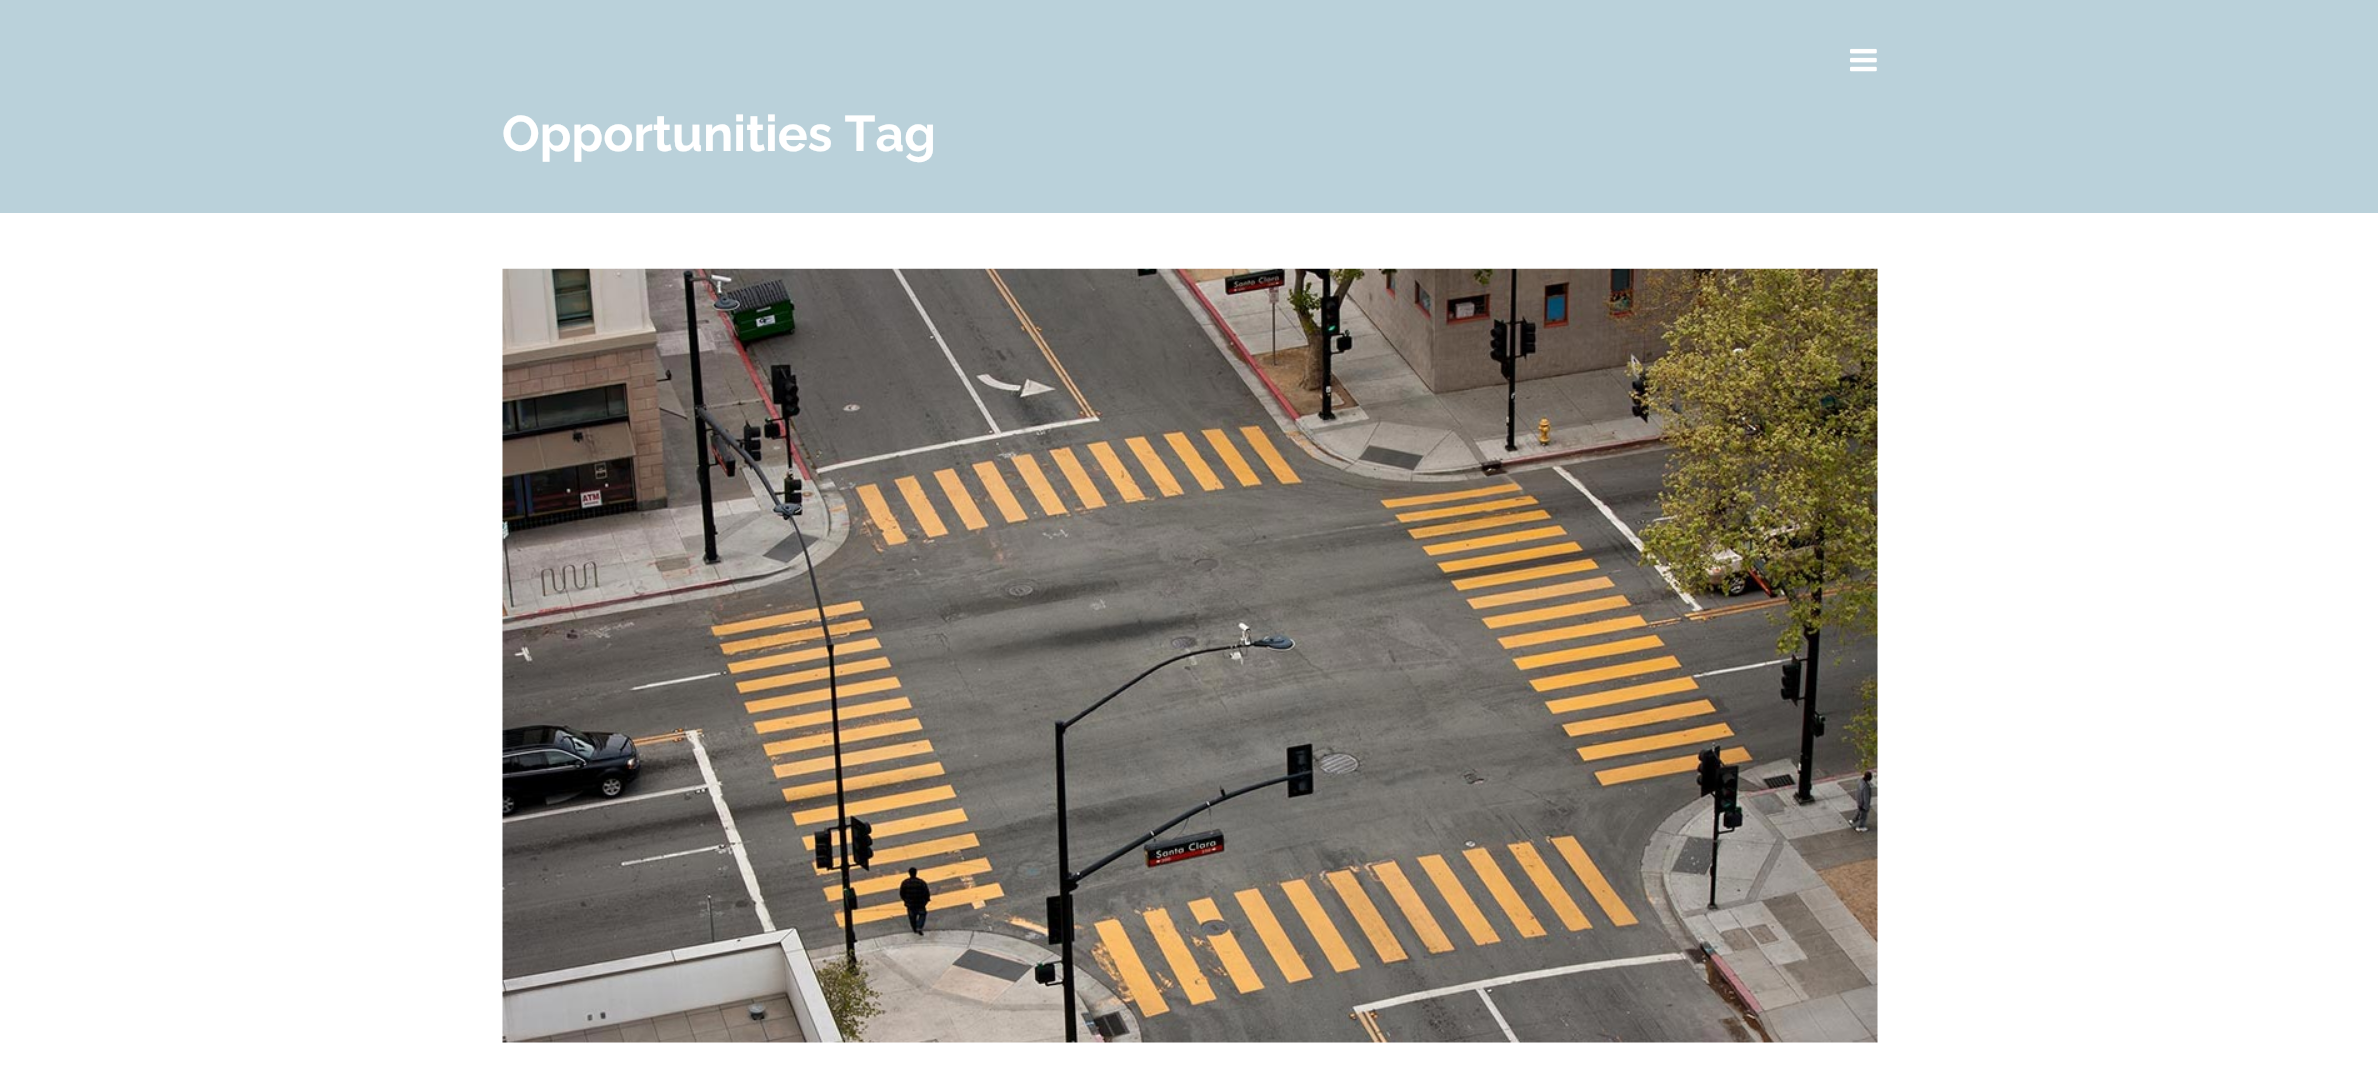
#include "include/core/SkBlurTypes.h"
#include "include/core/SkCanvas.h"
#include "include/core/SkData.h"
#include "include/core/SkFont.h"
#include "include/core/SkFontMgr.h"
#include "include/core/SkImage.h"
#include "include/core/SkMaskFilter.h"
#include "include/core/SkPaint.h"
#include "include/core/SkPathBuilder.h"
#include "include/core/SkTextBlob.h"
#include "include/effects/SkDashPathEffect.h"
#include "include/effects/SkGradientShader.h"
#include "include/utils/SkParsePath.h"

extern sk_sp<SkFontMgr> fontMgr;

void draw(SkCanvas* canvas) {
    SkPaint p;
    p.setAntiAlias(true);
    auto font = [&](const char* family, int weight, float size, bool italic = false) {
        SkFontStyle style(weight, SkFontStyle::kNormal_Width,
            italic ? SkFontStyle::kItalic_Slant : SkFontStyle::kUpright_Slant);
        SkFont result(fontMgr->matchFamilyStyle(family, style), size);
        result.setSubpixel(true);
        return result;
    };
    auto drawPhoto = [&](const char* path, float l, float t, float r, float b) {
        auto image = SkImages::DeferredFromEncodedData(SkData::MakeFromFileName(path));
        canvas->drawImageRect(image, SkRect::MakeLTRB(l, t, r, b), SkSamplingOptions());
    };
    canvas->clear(0xFFFFFFFF);
    p.setColor(0xFFBAD1DA);
    canvas->drawRect(SkRect::MakeLTRB(0, 0, 2378, 213), p);
    drawPhoto("media/1.png", 1850, 48, 1877, 72);
    auto font1 = font("Raleway", 700, 50);
    p.setColor(0xFFFFFFFF);
    canvas->drawString("Opportunities Tag", 502, 151, font1, p);
    drawPhoto("media/2.png", 502, 268, 1878, 1043);
}
